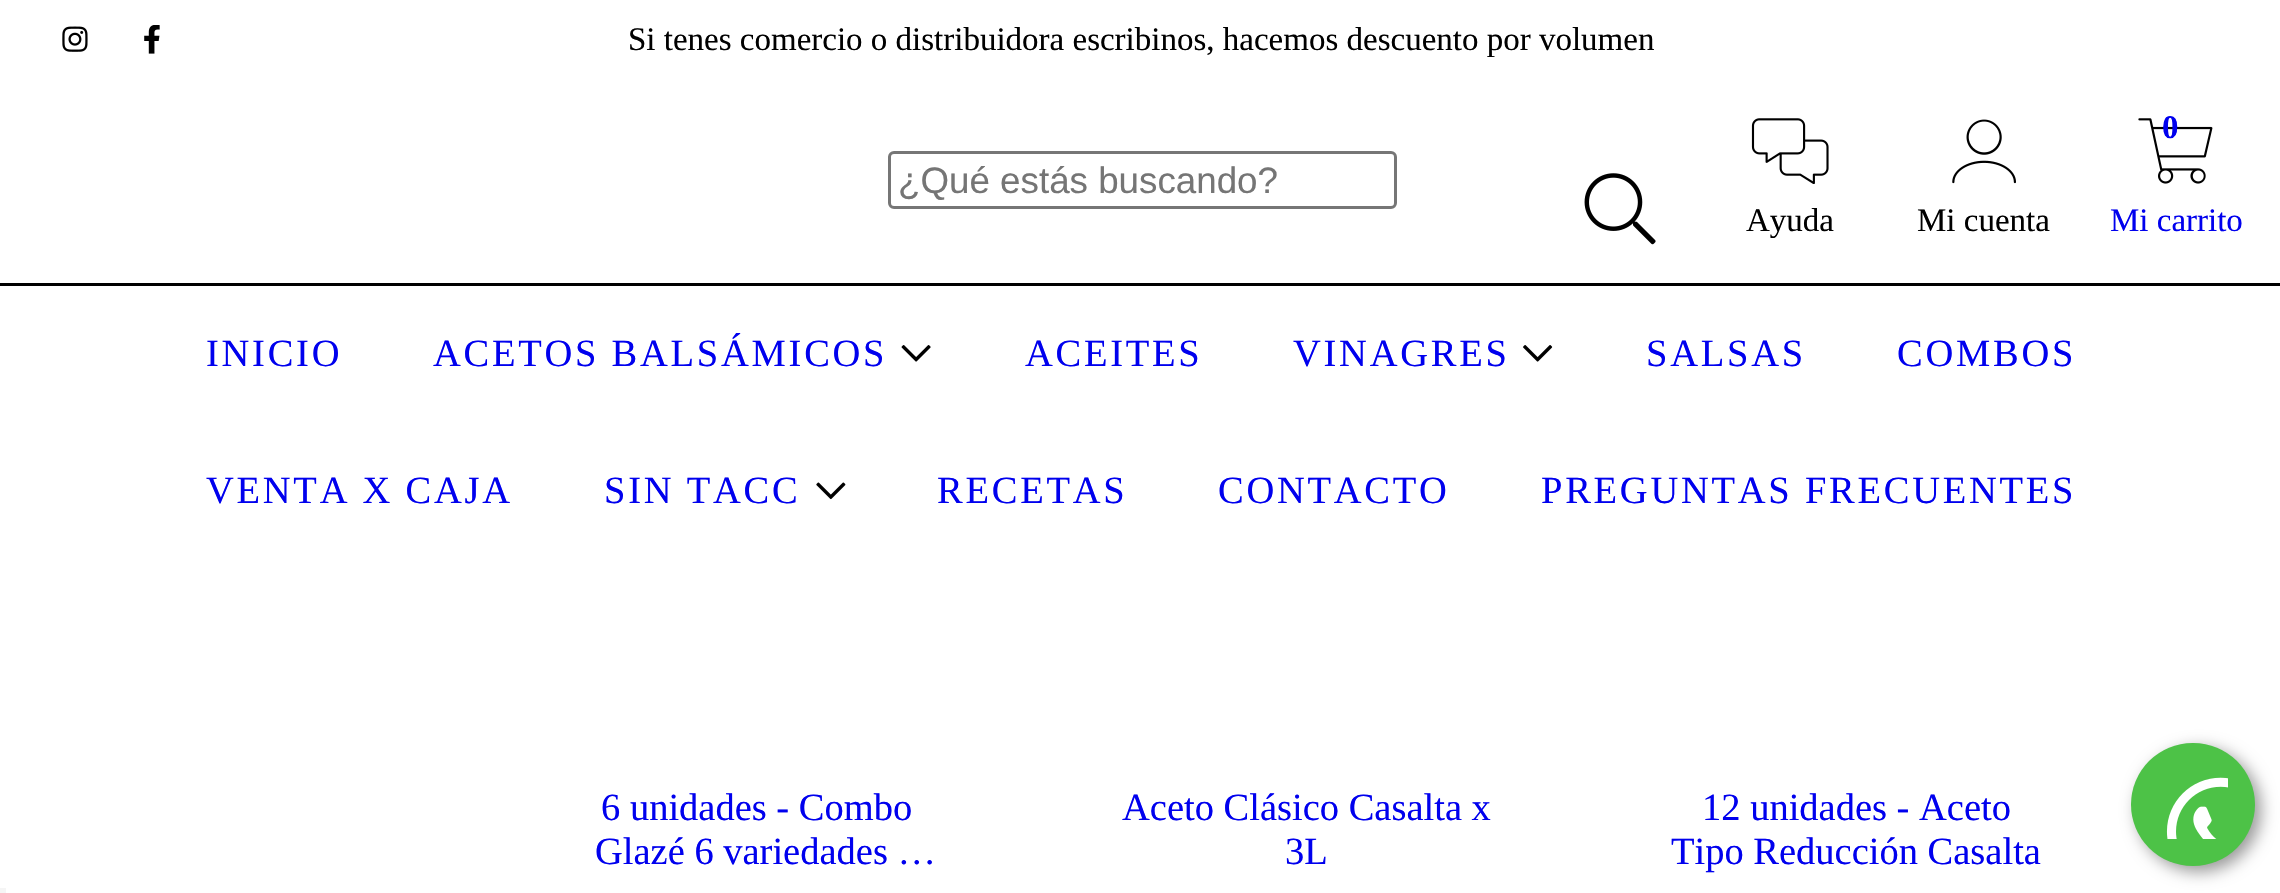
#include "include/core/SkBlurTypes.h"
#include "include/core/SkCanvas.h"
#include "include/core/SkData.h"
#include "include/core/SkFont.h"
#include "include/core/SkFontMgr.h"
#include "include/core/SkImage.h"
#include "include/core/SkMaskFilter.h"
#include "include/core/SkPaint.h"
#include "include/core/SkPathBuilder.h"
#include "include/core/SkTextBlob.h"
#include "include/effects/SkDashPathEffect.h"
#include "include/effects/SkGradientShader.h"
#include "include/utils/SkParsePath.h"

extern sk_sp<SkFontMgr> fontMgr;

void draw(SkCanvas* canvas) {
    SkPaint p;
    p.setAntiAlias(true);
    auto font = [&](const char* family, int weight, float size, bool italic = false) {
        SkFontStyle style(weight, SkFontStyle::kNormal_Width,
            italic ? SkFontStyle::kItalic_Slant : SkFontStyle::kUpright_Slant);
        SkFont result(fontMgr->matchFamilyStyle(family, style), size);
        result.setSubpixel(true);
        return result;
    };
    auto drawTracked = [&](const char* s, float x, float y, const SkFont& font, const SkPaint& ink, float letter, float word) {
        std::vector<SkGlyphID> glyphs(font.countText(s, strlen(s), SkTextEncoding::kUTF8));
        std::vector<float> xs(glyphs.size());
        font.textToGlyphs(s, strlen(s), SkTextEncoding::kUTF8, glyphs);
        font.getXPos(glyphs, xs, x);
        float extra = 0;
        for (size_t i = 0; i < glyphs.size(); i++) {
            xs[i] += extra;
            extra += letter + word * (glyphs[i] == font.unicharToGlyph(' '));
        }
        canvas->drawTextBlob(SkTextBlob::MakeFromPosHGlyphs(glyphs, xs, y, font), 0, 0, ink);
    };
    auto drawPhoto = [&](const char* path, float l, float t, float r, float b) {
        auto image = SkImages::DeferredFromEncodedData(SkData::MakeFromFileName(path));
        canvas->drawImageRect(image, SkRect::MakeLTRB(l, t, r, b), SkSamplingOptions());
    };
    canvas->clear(0xFFFFFFFF);
    drawPhoto("media/1.png", 62, 26, 88, 52);
    drawPhoto("media/2.png", 144, 25, 160, 54);
    auto font1 = font("Liberation Serif", 400, 33);
    p.setColor(0xFF000000);
    canvas->drawString("Si tenes comercio o distribuidora escribinos, hacemos descuento por volumen", 628, 50, font1, p);
    p.setStyle(SkPaint::kStroke_Style);
    p.setStrokeWidth(3);
    p.setColor(0xFF767676);
    canvas->drawRoundRect(SkRect::MakeLTRB(889.5f, 152.5f, 1395.5f, 207.5f), 4.5f, 4.5f, p);
    auto font2 = font("Liberation Sans", 400, 36.75f);
    p.setStyle(SkPaint::kFill_Style);
    p.setColor(0xFF757575);
    canvas->drawString("¿Qué estás buscando?", 898, 193, font2, p);
    drawPhoto("media/3.png", 1584, 173, 1656, 245);
    drawPhoto("media/4.png", 1751, 118, 1829, 184);
    p.setColor(0xFF000000);
    canvas->drawString("Ayuda", 1746, 231, font1, p);
    drawPhoto("media/5.png", 1952, 119, 2016, 184);
    canvas->drawString("Mi cuenta", 1917, 231, font1, p);
    drawPhoto("media/6.png", 2138, 118, 2213, 184);
    auto font3 = font("Liberation Serif", 700, 33);
    p.setColor(0xFF0000EE);
    canvas->drawString("0", 2162, 138, font3, p);
    canvas->drawString("Mi carrito", 2110, 231, font1, p);
    p.setColor(0xFF000000);
    canvas->drawRect(SkRect::MakeLTRB(0, 283, 2280, 286), p);
    auto font4 = font("Liberation Serif", 400, 38.5f);
    p.setColor(0xFF0000EE);
    drawTracked("INICIO", 206, 366, font4, p, 2.75f, 0);
    drawTracked("ACETOS BALSÁMICOS", 433, 366, font4, p, 2.75f, 0);
    drawPhoto("media/7.png", 901, 345, 931, 362);
    drawTracked("ACEITES", 1025, 366, font4, p, 2.75f, 0);
    drawTracked("VINAGRES", 1293, 366, font4, p, 2.75f, 0);
    drawPhoto("media/8.png", 1523, 345, 1553, 362);
    {
        const struct { const char* s; float x, y; } items[] = {
            {"SALSAS", 1646, 366},
            {"COMBOS", 1897, 366},
            {"VENTA X CAJA", 206, 503},
            {"SIN TACC", 604, 503},
        };
        for (auto [s, x, y] : items) {
            drawTracked(s, x, y, font4, p, 2.75f, 0);
        }
    }
    drawPhoto("media/9.png", 816, 482, 846, 500);
    {
        const struct { const char* s; float x, y; } items[] = {
            {"RECETAS", 937, 503},
            {"CONTACTO", 1218, 503},
            {"PREGUNTAS FRECUENTES", 1541, 503},
        };
        for (auto [s, x, y] : items) {
            drawTracked(s, x, y, font4, p, 2.75f, 0);
        }
    }
    {
        const struct { const char* s; float x, y; } items[] = {
            {"6 unidades - Combo", 601, 820},
            {"Glazé 6 variedades …", 595, 864},
            {"Aceto Clásico Casalta x", 1122, 820},
            {"3L", 1285, 864},
            {"12 unidades - Aceto", 1702, 820},
            {"Tipo Reducción Casalta", 1671, 864},
        };
        for (auto [s, x, y] : items) {
            canvas->drawString(s, x, y, font4, p);
        }
    }
    p.setColor(0x66000000);
    p.setMaskFilter(SkMaskFilter::MakeBlur(kNormal_SkBlurStyle, 8));
    canvas->drawRoundRect(SkRect::MakeLTRB(2137, 748, 2261, 872), 62, 62, p);
    p.setMaskFilter(nullptr);
    p.setColor(0xFF4DC247);
    canvas->drawRoundRect(SkRect::MakeLTRB(2131, 743, 2255, 866), 61.5f, 61.5f, p);
    drawPhoto("media/10.png", 2166, 777, 2228, 839);
    p.setColor(0xFFF5F5F5);
    canvas->drawRect(SkRect::MakeLTRB(0, 888, 6, 893), p);
}
